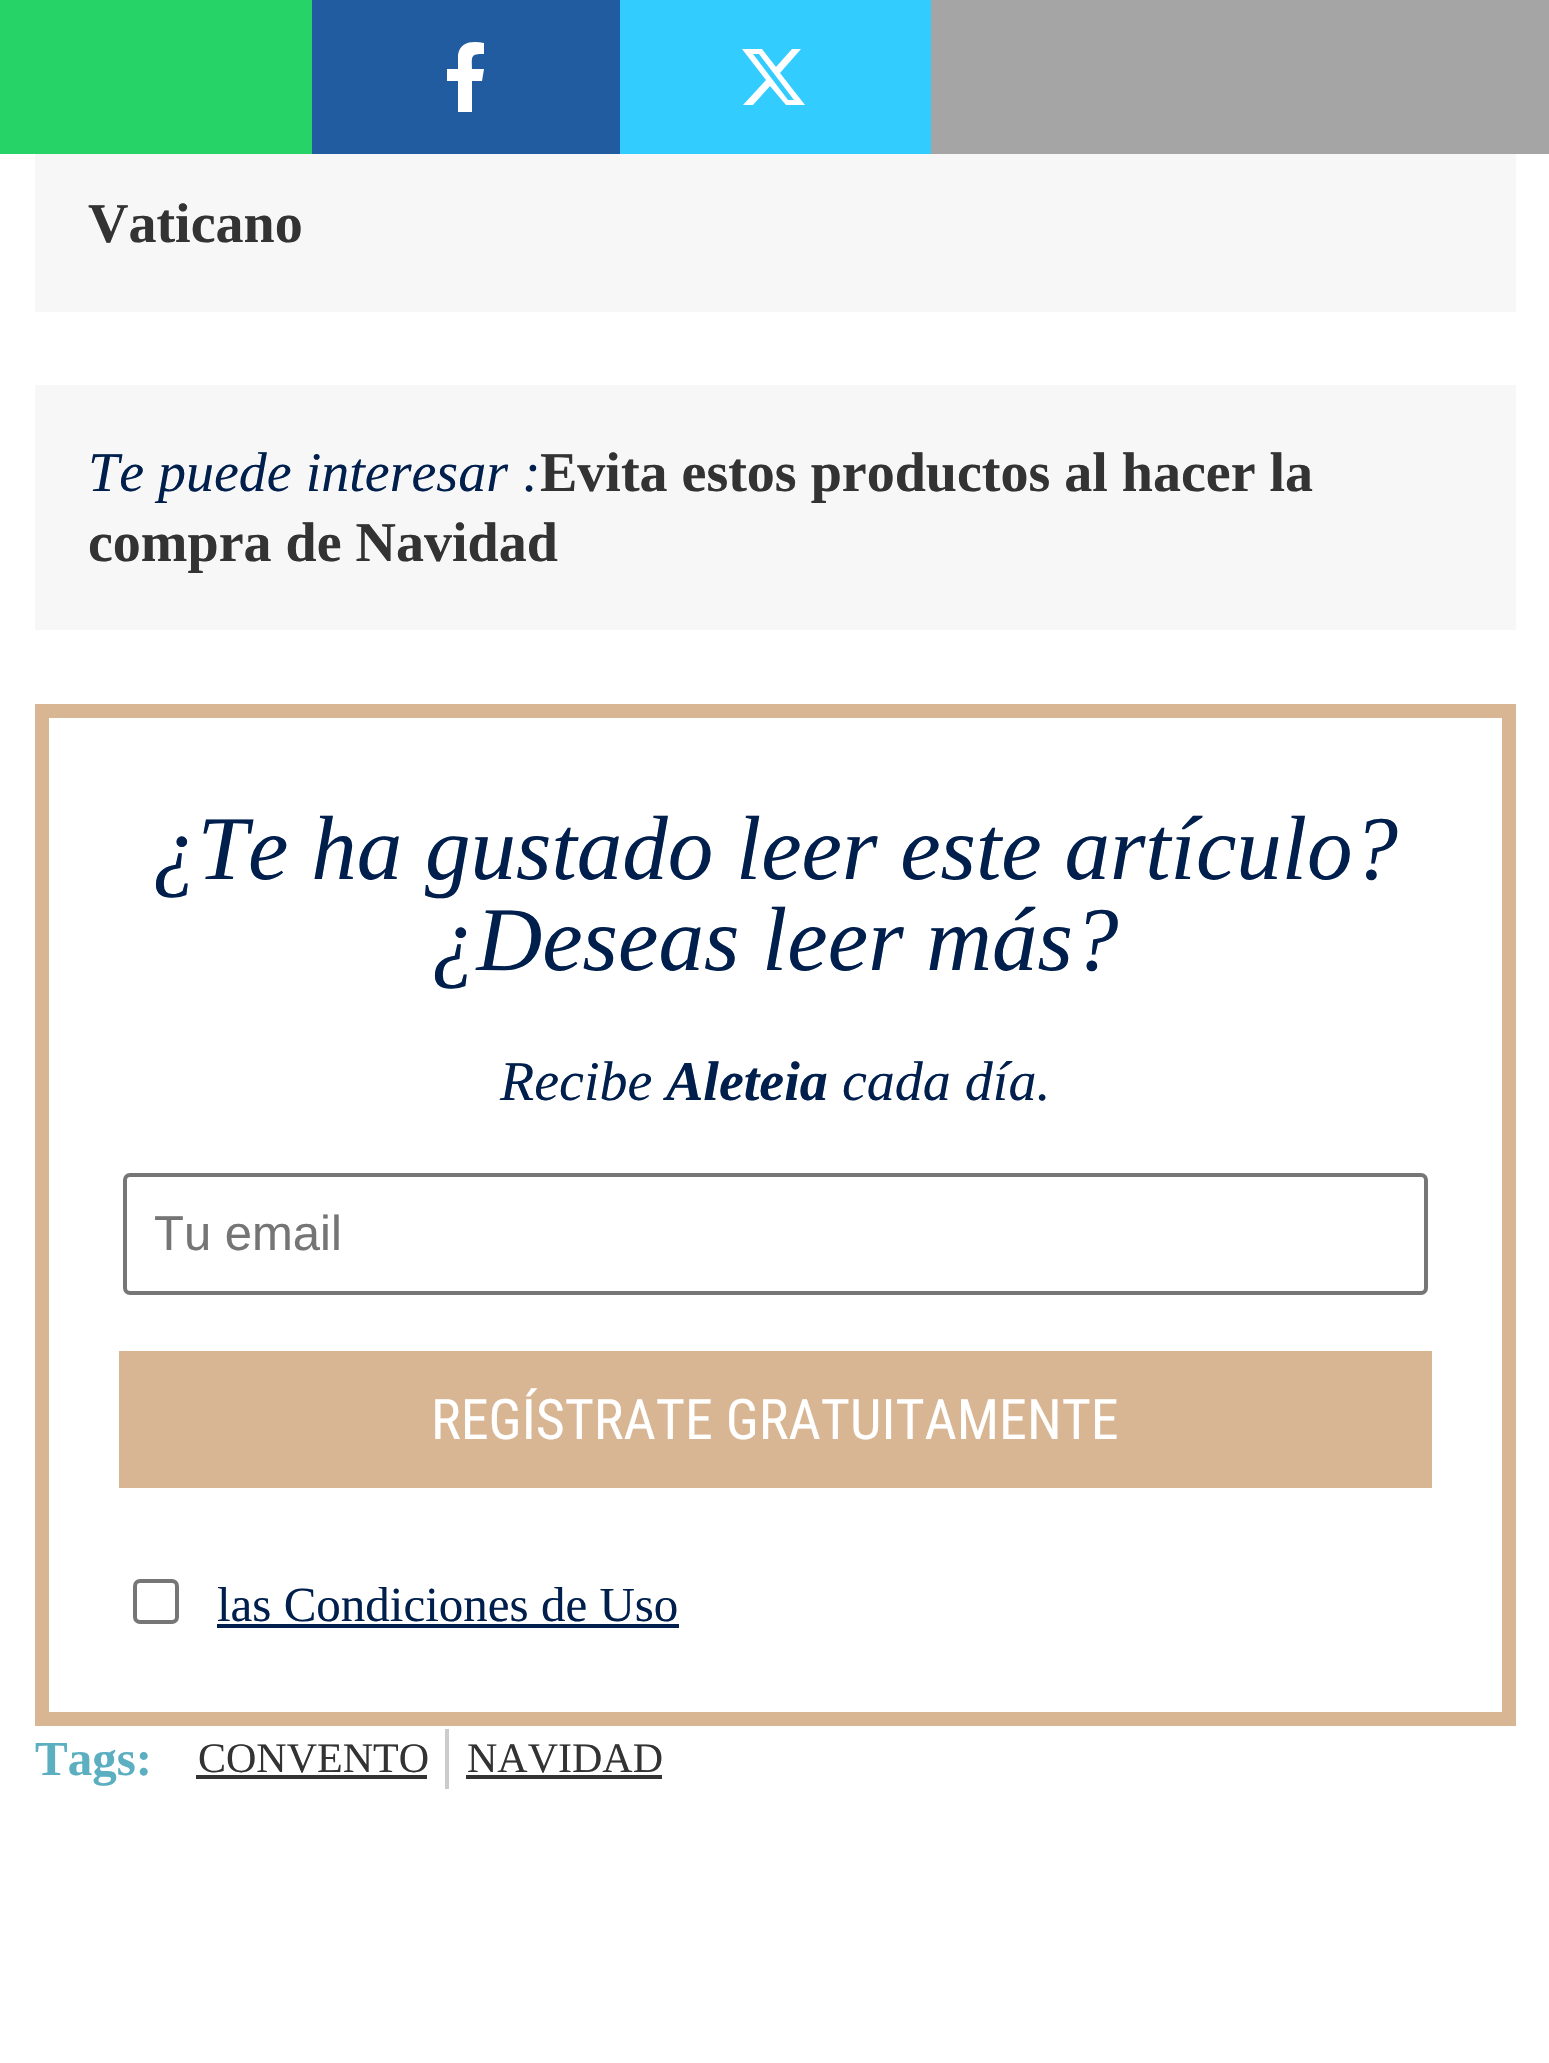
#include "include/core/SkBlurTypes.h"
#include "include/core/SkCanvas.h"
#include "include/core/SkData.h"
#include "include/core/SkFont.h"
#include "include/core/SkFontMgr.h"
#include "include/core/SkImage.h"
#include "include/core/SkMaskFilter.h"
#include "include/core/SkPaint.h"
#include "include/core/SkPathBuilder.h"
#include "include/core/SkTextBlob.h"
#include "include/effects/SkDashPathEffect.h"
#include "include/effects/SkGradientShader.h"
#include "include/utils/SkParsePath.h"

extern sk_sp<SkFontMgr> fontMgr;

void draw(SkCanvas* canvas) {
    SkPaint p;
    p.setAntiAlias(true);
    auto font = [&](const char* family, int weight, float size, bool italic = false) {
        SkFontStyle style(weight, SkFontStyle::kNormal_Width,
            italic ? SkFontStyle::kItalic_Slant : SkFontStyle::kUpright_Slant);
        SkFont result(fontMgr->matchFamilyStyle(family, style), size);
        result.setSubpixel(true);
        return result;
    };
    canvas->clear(0xFFFFFFFF);
    p.setColor(0xFF25D366);
    canvas->drawRect(SkRect::MakeLTRB(0, 0, 312, 154), p);
    p.setColor(0xFF225CA0);
    canvas->drawRect(SkRect::MakeLTRB(312, 0, 620, 154), p);
    p.setColor(0xFFFFFFFF);
    canvas->drawPath(SkPathBuilder().moveTo(482, 81).lineTo(484, 69).lineTo(472, 69).cubicTo(472, 56, 470, 54, 484, 54).lineTo(484, 43).cubicTo(473, 41, 460, 41, 458, 55).lineTo(458, 69).lineTo(447, 69).lineTo(447, 81).lineTo(458, 81).lineTo(458, 112).lineTo(472, 112).lineTo(472, 81).close().detach(), p);
    p.setColor(0xFF33CCFF);
    canvas->drawRect(SkRect::MakeLTRB(620, 0, 931, 154), p);
    p.setColor(0xFFFFFFFF);
    canvas->drawPath(SkPathBuilder().moveTo(792, 49).lineTo(801, 49).lineTo(780, 73).lineTo(805, 105).lineTo(786, 105).lineTo(770, 86).lineTo(753, 105).lineTo(743, 105).lineTo(766, 80).lineTo(742, 49).lineTo(762, 49).lineTo(776, 67).close().moveTo(788, 100).lineTo(794, 100).lineTo(759, 54).lineTo(753, 54).close().detach(), p);
    p.setColor(0xFFA5A5A5);
    canvas->drawRect(SkRect::MakeLTRB(931, 0, 1549, 154), p);
    p.setColor(0xFFF7F7F7);
    canvas->drawRect(SkRect::MakeLTRB(35, 154, 1516, 312), p);
    auto font1 = font("Liberation Serif", 700, 56);
    p.setColor(0xFF333333);
    canvas->drawString("Vaticano", 88, 242, font1, p);
    p.setColor(0xFFF7F7F7);
    canvas->drawRect(SkRect::MakeLTRB(35, 385, 1516, 630), p);
    auto font2 = font("Liberation Serif", 400, 56, true);
    p.setColor(0xFF001F4D);
    canvas->drawString("Te puede interesar :", 88, 491, font2, p);
    p.setColor(0xFF333333);
    canvas->drawString("Evita estos productos al hacer la", 540, 491, font1, p);
    canvas->drawString("compra de Navidad", 88, 561, font1, p);
    p.setStyle(SkPaint::kStroke_Style);
    p.setStrokeWidth(14);
    p.setColor(0xFFD8B593);
    canvas->drawRect(SkRect::MakeLTRB(42, 711, 1509, 1719), p);
    auto font3 = font("Liberation Serif", 400, 91, true);
    p.setStyle(SkPaint::kFill_Style);
    p.setColor(0xFF001F4D);
    canvas->drawString("¿Te ha gustado leer este artículo?", 152, 879, font3, p);
    canvas->drawString("¿Deseas leer más?", 431, 970, font3, p);
    canvas->drawString("Recibe", 500, 1100, font2, p);
    auto font4 = font("Liberation Serif", 700, 56, true);
    canvas->drawString("Aleteia", 666, 1100, font4, p);
    canvas->drawString("cada día.", 842, 1100, font2, p);
    p.setStyle(SkPaint::kStroke_Style);
    p.setStrokeWidth(4);
    p.setColor(0xFF767676);
    canvas->drawRoundRect(SkRect::MakeLTRB(125, 1175, 1426, 1293), 5, 5, p);
    auto font5 = font("Liberation Sans", 400, 49);
    p.setStyle(SkPaint::kFill_Style);
    p.setColor(0xFF757575);
    canvas->drawString("Tu email", 154, 1250, font5, p);
    p.setColor(0xFFD8B593);
    canvas->drawRect(SkRect::MakeLTRB(119, 1351, 1432, 1488), p);
    auto font6 = font("Roboto Condensed", 400, 56);
    p.setColor(0xFFFFFFFF);
    canvas->drawString("REGÍSTRATE GRATUITAMENTE", 431, 1439, font6, p);
    p.setStyle(SkPaint::kStroke_Style);
    p.setColor(0xFF767676);
    canvas->drawRoundRect(SkRect::MakeLTRB(135, 1581, 177, 1622), 5, 5, p);
    auto font7 = font("Liberation Serif", 400, 49);
    p.setStyle(SkPaint::kFill_Style);
    p.setColor(0xFF001F4D);
    canvas->drawString("las Condiciones de Uso", 217, 1621, font7, p);
    canvas->drawRect(SkRect::MakeLTRB(217, 1624, 679, 1628), p);
    auto font8 = font("Liberation Serif", 700, 49);
    p.setColor(0xFF5BAFC0);
    canvas->drawString("Tags:", 35, 1775, font8, p);
    p.setColor(0xFFCCCCCC);
    canvas->drawRect(SkRect::MakeLTRB(445, 1729, 449, 1789), p);
    auto font9 = font("Liberation Serif", 400, 42);
    p.setColor(0xFF333333);
    canvas->drawString("CONVENTO", 198, 1772, font9, p);
    canvas->drawRect(SkRect::MakeLTRB(196, 1775, 427, 1779), p);
    canvas->drawString("NAVIDAD", 467, 1772, font9, p);
    canvas->drawRect(SkRect::MakeLTRB(466, 1775, 662, 1779), p);
}
